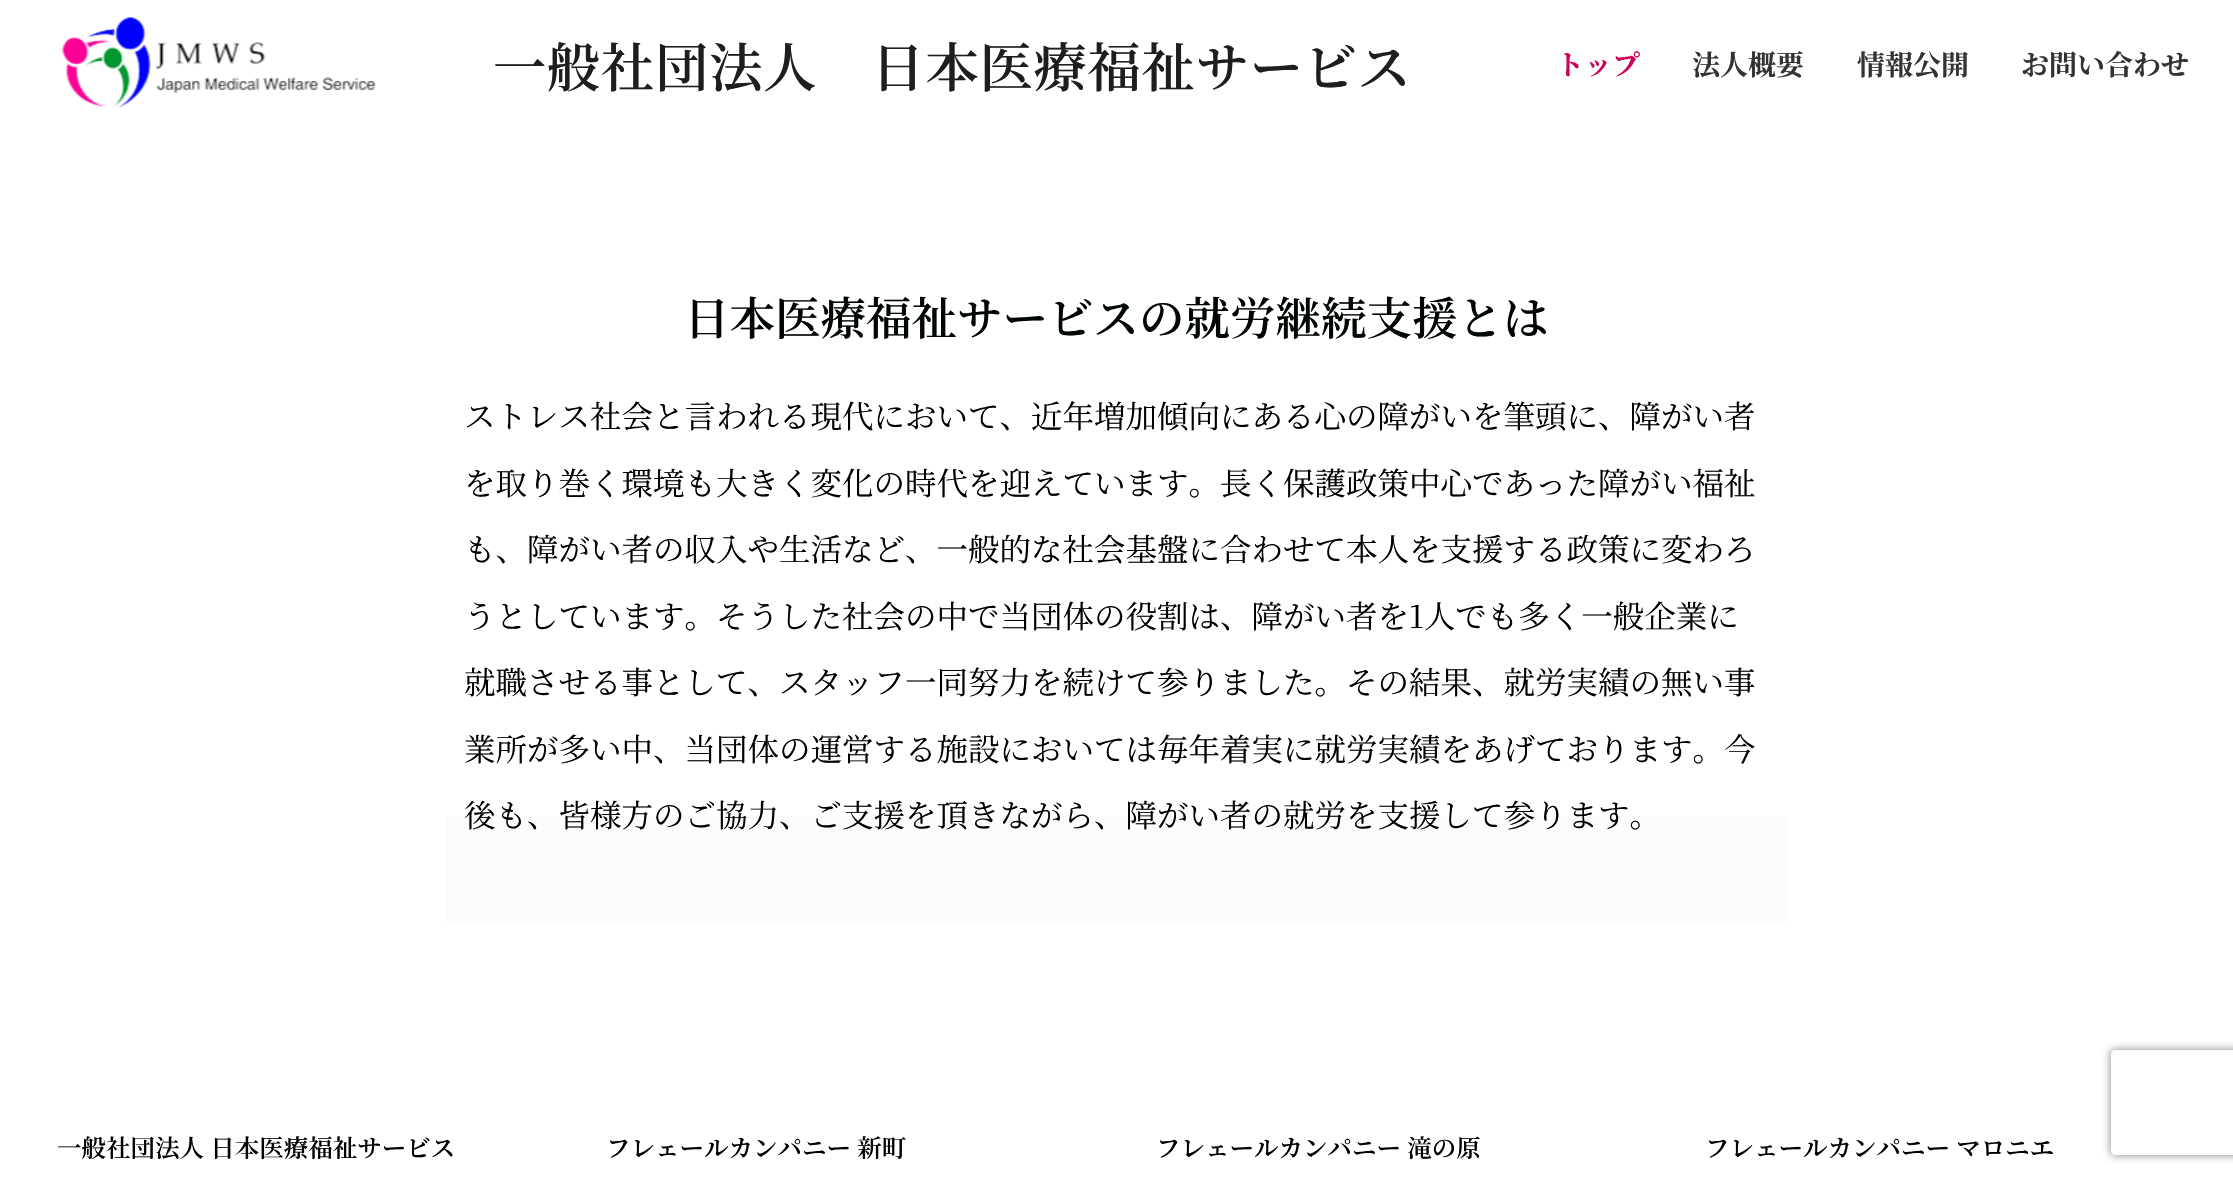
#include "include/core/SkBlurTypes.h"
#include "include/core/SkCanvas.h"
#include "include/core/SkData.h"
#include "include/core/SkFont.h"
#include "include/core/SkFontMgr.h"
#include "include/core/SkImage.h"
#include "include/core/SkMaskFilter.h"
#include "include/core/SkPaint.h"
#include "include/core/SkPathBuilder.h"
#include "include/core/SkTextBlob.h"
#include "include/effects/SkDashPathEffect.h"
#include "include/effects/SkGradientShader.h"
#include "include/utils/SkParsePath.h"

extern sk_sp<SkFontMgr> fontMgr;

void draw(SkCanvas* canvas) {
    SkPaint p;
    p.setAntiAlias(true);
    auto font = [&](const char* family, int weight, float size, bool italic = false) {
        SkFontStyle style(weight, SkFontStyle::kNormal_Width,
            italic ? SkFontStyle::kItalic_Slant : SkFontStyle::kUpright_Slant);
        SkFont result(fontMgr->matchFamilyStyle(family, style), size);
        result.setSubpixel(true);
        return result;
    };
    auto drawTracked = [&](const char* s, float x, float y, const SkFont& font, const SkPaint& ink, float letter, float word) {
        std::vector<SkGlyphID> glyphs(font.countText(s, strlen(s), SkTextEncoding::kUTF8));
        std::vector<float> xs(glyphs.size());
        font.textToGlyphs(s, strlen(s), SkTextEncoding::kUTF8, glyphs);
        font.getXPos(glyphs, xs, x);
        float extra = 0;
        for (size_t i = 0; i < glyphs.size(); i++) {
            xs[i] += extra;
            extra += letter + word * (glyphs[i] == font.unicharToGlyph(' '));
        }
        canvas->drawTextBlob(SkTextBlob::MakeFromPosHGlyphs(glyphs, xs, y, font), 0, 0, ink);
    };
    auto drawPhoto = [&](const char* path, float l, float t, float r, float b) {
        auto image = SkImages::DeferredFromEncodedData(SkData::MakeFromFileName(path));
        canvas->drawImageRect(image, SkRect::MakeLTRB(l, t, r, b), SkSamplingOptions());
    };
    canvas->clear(0xFFFFFFFF);
    drawPhoto("media/1.png", 62, 17, 376, 109);
    auto font1 = font("Noto Serif JP", 600, 53.25f);
    p.setColor(0xFF1E1E1E);
    drawTracked("一般社団法人　日本医療福祉サービス", 493, 87, font1, p, 0.8f, 0);
    auto font2 = font("Noto Serif JP", 700, 28);
    p.setColor(0xFFCF005C);
    canvas->drawString("トップ", 1556, 75, font2, p);
    p.setColor(0xFF333333);
    {
        const struct { const char* s; float x, y; } items[] = {
            {"法人概要", 1692, 75},
            {"情報公開", 1857, 75},
            {"お問い合わせ", 2021, 75},
        };
        for (auto [s, x, y] : items) {
            canvas->drawString(s, x, y, font2, p);
        }
    }
    {
        const SkColor colors[] = {0xFFFFFFFF, 0xFFFCFCFC};
        const float stops[] = {0, 1};
        const SkPoint ends[] = {{1117, 276}, {1117, 924}};
        p.setShader(SkGradientShader::MakeLinear(ends, colors, stops, 2, SkTileMode::kClamp));
        p.setAlpha(255);
    }
    canvas->drawRect(SkRect::MakeLTRB(446, 816, 1787, 924), p);
    auto font3 = font("Noto Serif JP", 600, 45.5f);
    p.setShader(nullptr);
    p.setColor(0xFF000600);
    canvas->drawString("日本医療福祉サービスの就労継続支援とは", 684, 335, font3, p);
    auto font4 = font("Noto Serif JP", 400, 31.5f);
    p.setColor(0xFF000000);
    {
        const struct { const char* s; float x, y; } items[] = {
            {"ストレス社会と言われる現代において、近年増加傾向にある心の障がいを筆頭に、障がい者", 464, 428},
            {"を取り巻く環境も大きく変化の時代を迎えています。長く保護政策中心であった障がい福祉", 464, 495},
            {"も、障がい者の収入や生活など、一般的な社会基盤に合わせて本人を支援する政策に変わろ", 464, 561},
            {"うとしています。そうした社会の中で当団体の役割は、障がい者を1人でも多く一般企業に", 464, 628},
            {"就職させる事として、スタッフ一同努力を続けて参りました。その結果、就労実績の無い事", 464, 694},
            {"業所が多い中、当団体の運営する施設においては毎年着実に就労実績をあげております。今", 464, 761},
            {"後も、皆様方のご協力、ご支援を頂きながら、障がい者の就労を支援して参ります。", 464, 827},
        };
        for (auto [s, x, y] : items) {
            canvas->drawString(s, x, y, font4, p);
        }
    }
    auto font5 = font("Noto Serif JP", 600, 24.5f);
    {
        const struct { const char* s; float x, y; } items[] = {
            {"一般社団法人 日本医療福祉サービス", 57, 1157},
            {"フレェールカンパニー 新町", 606, 1157},
            {"フレェールカンパニー 滝の原", 1156, 1157},
            {"フレェールカンパニー マロニエ", 1705, 1157},
        };
        for (auto [s, x, y] : items) {
            canvas->drawString(s, x, y, font5, p);
        }
    }
    canvas->save();
    canvas->clipPath(SkPathBuilder(SkPathFillType::kEvenOdd).moveTo(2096, 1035).lineTo(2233, 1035).lineTo(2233, 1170).lineTo(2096, 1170).close().moveTo(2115, 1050).lineTo(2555, 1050).cubicTo(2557, 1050, 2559, 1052, 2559, 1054).lineTo(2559, 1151).cubicTo(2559, 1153, 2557, 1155, 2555, 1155).lineTo(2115, 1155).cubicTo(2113, 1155, 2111, 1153, 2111, 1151).lineTo(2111, 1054).cubicTo(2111, 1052, 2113, 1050, 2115, 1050).close().detach(), true);
    p.setColor(0xFF808080);
    p.setMaskFilter(SkMaskFilter::MakeBlur(kNormal_SkBlurStyle, 4.5f));
    canvas->drawRoundRect(SkRect::MakeLTRB(2111, 1050, 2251, 1155), 4, 4, p);
    p.setMaskFilter(nullptr);
    canvas->restore();
}
